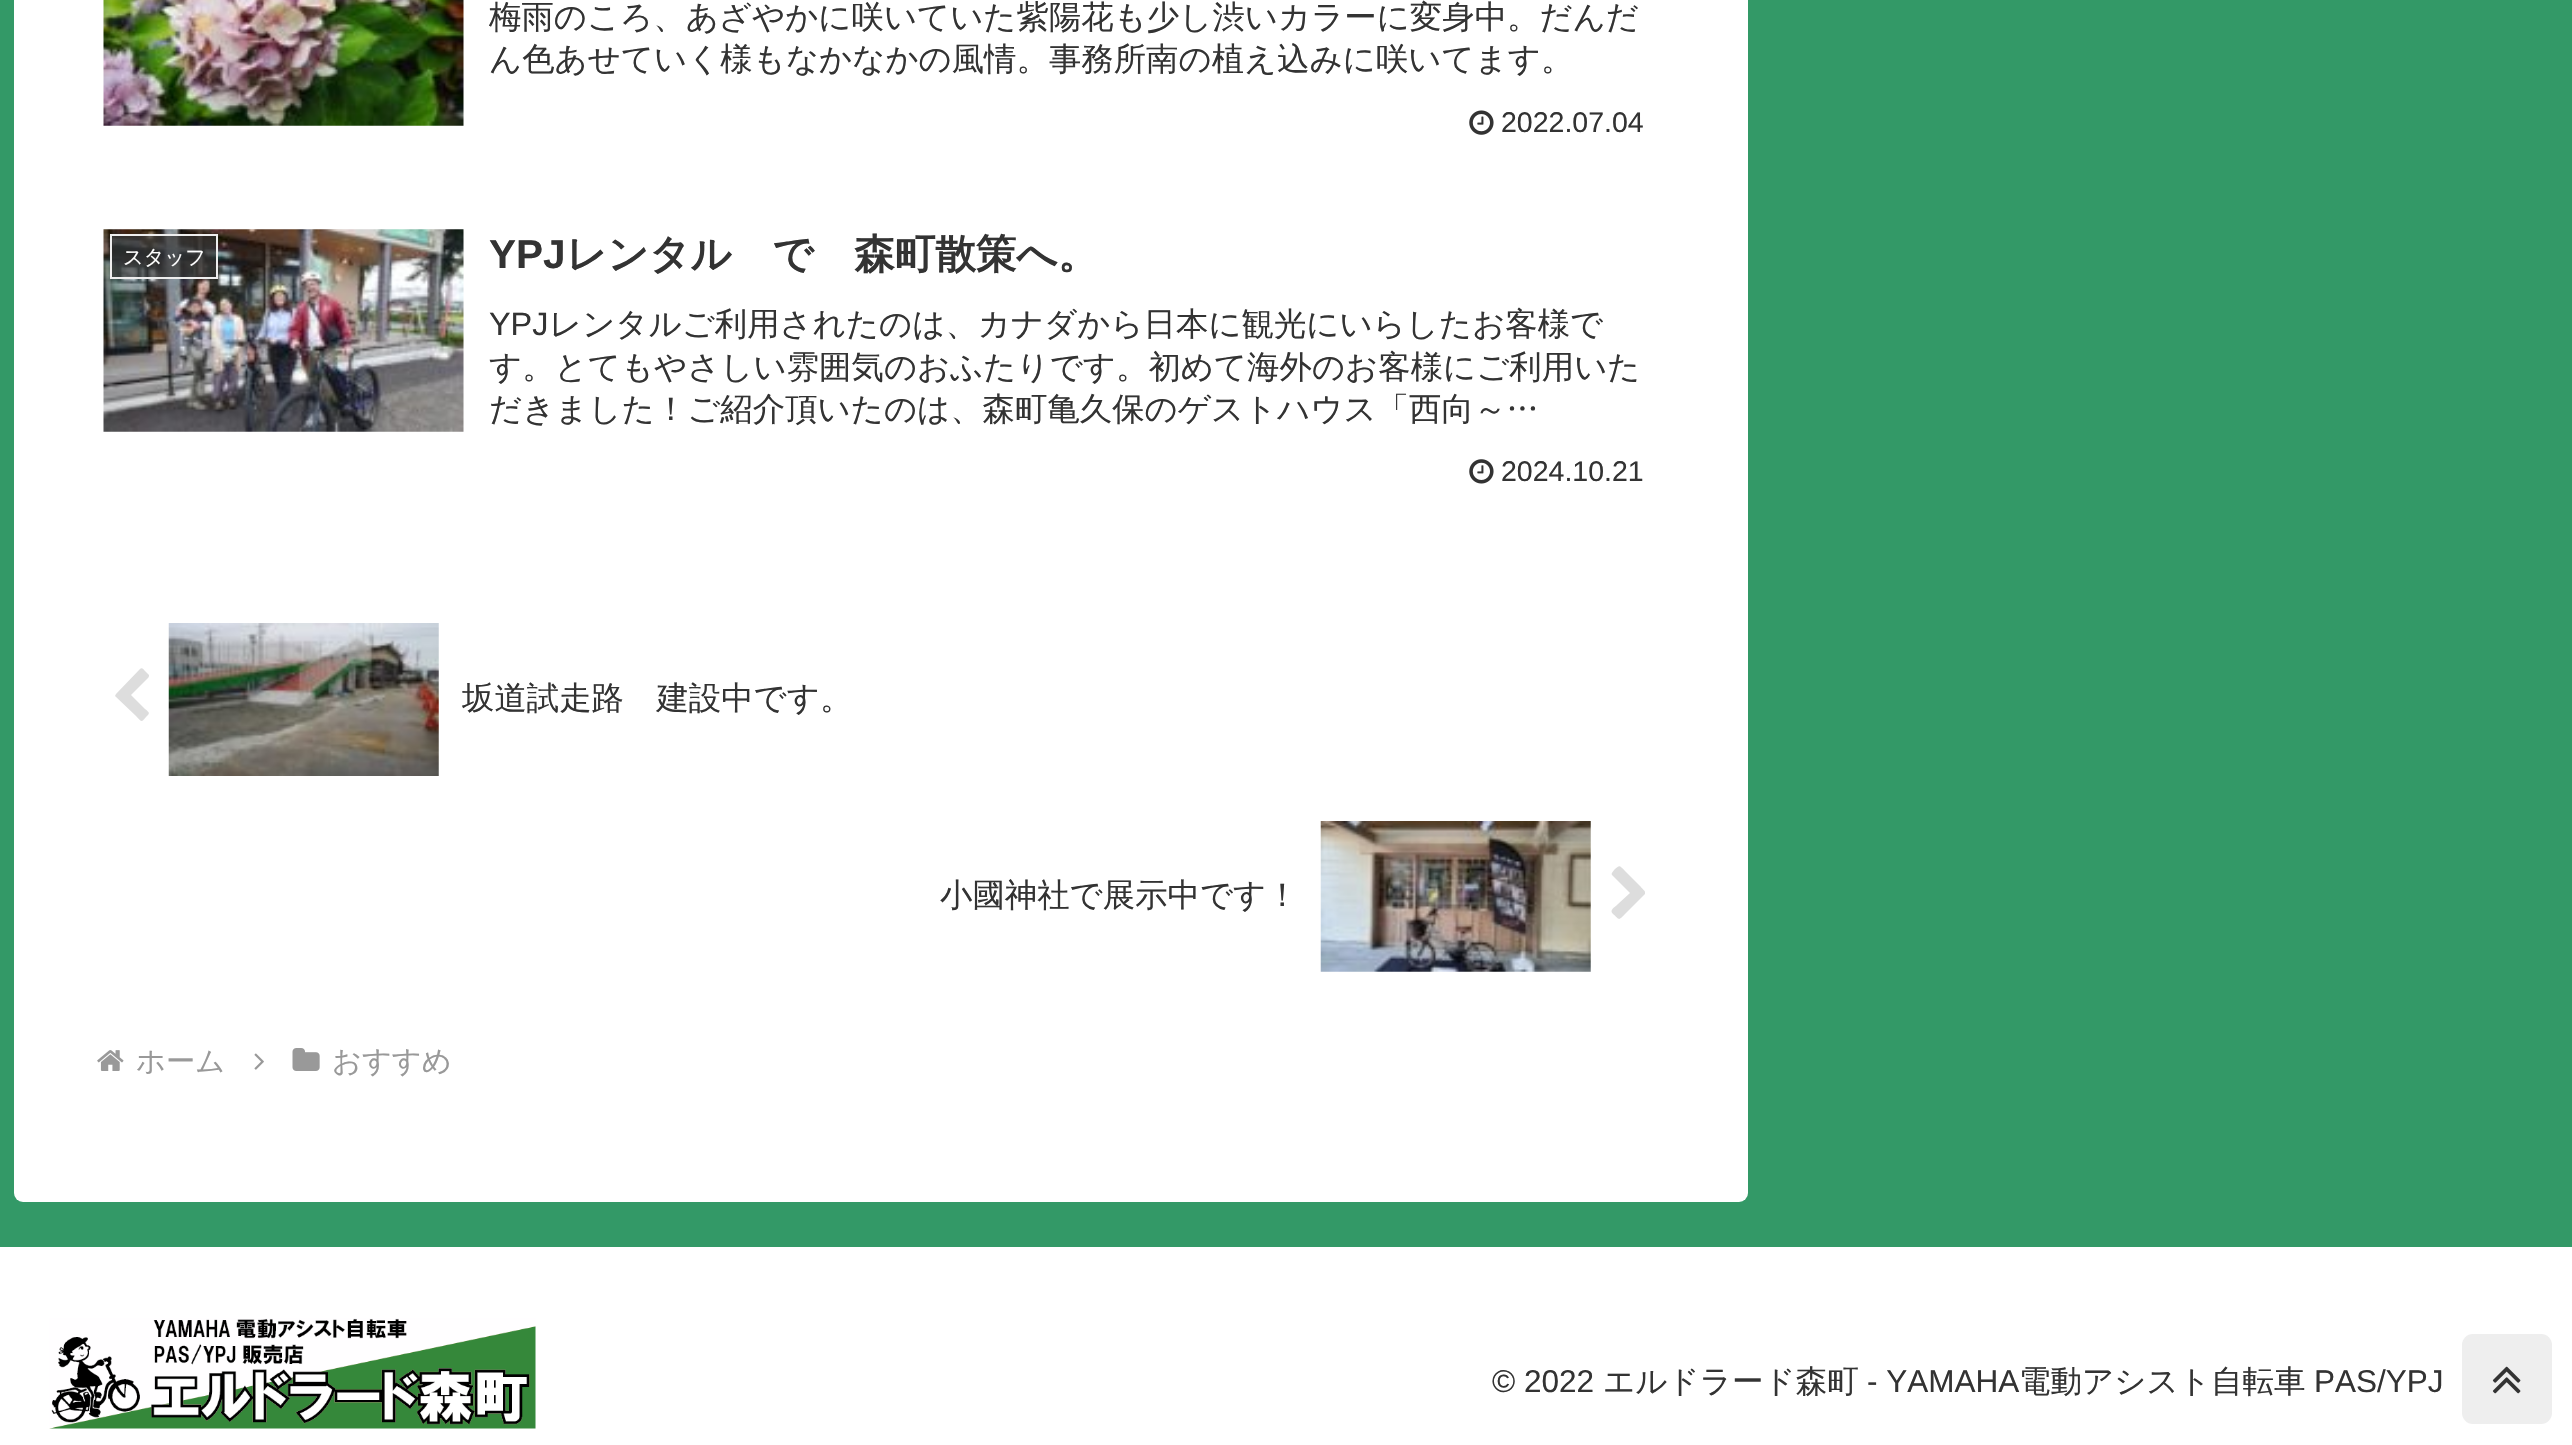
#include "include/core/SkBlurTypes.h"
#include "include/core/SkCanvas.h"
#include "include/core/SkData.h"
#include "include/core/SkFont.h"
#include "include/core/SkFontMgr.h"
#include "include/core/SkImage.h"
#include "include/core/SkMaskFilter.h"
#include "include/core/SkPaint.h"
#include "include/core/SkPathBuilder.h"
#include "include/core/SkTextBlob.h"
#include "include/effects/SkDashPathEffect.h"
#include "include/effects/SkGradientShader.h"
#include "include/utils/SkParsePath.h"

extern sk_sp<SkFontMgr> fontMgr;

void draw(SkCanvas* canvas) {
    SkPaint p;
    p.setAntiAlias(true);
    auto font = [&](const char* family, int weight, float size, bool italic = false) {
        SkFontStyle style(weight, SkFontStyle::kNormal_Width,
            italic ? SkFontStyle::kItalic_Slant : SkFontStyle::kUpright_Slant);
        SkFont result(fontMgr->matchFamilyStyle(family, style), size);
        result.setSubpixel(true);
        return result;
    };
    auto drawPhoto = [&](const char* path, float l, float t, float r, float b) {
        auto image = SkImages::DeferredFromEncodedData(SkData::MakeFromFileName(path));
        canvas->drawImageRect(image, SkRect::MakeLTRB(l, t, r, b), SkSamplingOptions());
    };
    canvas->clear(0xFF339967);
    p.setColor(0xFFFFFFFF);
    canvas->drawRoundRect(SkRect::MakeLTRB(14, -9, 1748, 1202), 9, 9, p);
    drawPhoto("media/1.png", 103, 0, 464, 126);
    auto font1 = font("WenQuanYi Zen Hei", 500, 32.4f);
    p.setColor(0xFF333333);
    canvas->drawString("梅雨のころ、あざやかに咲いていた紫陽花も少し渋いカラーに変身中。だんだ", 489, 28, font1, p);
    canvas->drawString("ん色あせていく様もなかなかの風情。事務所南の植え込みに咲いてます。", 489, 70, font1, p);
    drawPhoto("media/2.png", 1469, 110, 1494, 135);
    auto font2 = font("Liberation Sans", 400, 28.5f);
    canvas->drawString("2022.07.04", 1501, 132, font2, p);
    drawPhoto("media/3.png", 103, 229, 464, 432);
    p.setColor(0xB3333333);
    canvas->drawRect(SkRect::MakeLTRB(111, 235, 217, 278), p);
    p.setStyle(SkPaint::kStroke_Style);
    p.setStrokeWidth(2);
    p.setColor(0xFFEEEEEE);
    canvas->drawRect(SkRect::MakeLTRB(111, 235, 217, 278), p);
    auto font3 = font("WenQuanYi Zen Hei", 500, 20.25f);
    p.setStyle(SkPaint::kFill_Style);
    p.setColor(0xFFFFFFFF);
    canvas->drawString("スタッフ", 123, 264, font3, p);
    auto font4 = font("Liberation Sans", 700, 40.5f);
    p.setColor(0xFF333333);
    canvas->drawString("YPJ", 489, 268, font4, p);
    auto font5 = font("WenQuanYi Zen Hei", 700, 40.5f);
    canvas->drawString("レンタル　で　森町散策へ。", 566, 268, font5, p);
    auto font6 = font("Liberation Sans", 400, 32.4f);
    canvas->drawString("YPJ", 489, 335, font6, p);
    {
        const struct { const char* s; float x, y; } items[] = {
            {"レンタルご利用されたのは、カナダから日本に観光にいらしたお客様で", 549, 335},
            {"す。とてもやさしい雰囲気のおふたりです。初めて海外のお客様にご利用いた", 489, 378},
            {"だきました！ご紹介頂いたのは、森町亀久保のゲストハウス「西向～…", 489, 420},
        };
        for (auto [s, x, y] : items) {
            canvas->drawString(s, x, y, font1, p);
        }
    }
    drawPhoto("media/4.png", 1469, 459, 1494, 484);
    canvas->drawString("2024.10.21", 1501, 481, font2, p);
    p.setColor(0xFFDDDDDD);
    canvas->drawPath(SkPathBuilder().moveTo(148, 678).lineTo(131, 695).lineTo(145, 709).cubicTo(150, 713, 150, 713, 146, 717).cubicTo(141, 723, 142, 722, 136, 716).lineTo(115, 696).lineTo(116, 694).lineTo(140, 669).cubicTo(142, 667, 144, 670, 145, 671).lineTo(149, 675).cubicTo(149, 676, 149, 677, 148, 678).close().detach(), p);
    drawPhoto("media/5.png", 168, 623, 439, 776);
    p.setColor(0xFF333333);
    canvas->drawString("坂道試走路　建設中です。", 462, 709, font1, p);
    canvas->drawString("小國神社で展示中です！", 940, 906, font1, p);
    drawPhoto("media/6.png", 1320, 821, 1591, 972);
    p.setColor(0xFFDDDDDD);
    canvas->drawPath(SkPathBuilder().moveTo(1645, 894).lineTo(1625, 914).cubicTo(1618, 921, 1620, 920, 1613, 914).cubicTo(1609, 910, 1614, 908, 1618, 904).lineTo(1630, 893).lineTo(1612, 875).cubicTo(1611, 873, 1613, 872, 1614, 870).cubicTo(1620, 865, 1619, 865, 1625, 871).lineTo(1641, 887).cubicTo(1641, 888, 1646, 891, 1645, 893).close().detach(), p);
    drawPhoto("media/7.png", 97, 1050, 124, 1071);
    auto font7 = font("WenQuanYi Zen Hei", 500, 29.25f);
    p.setColor(0xFF999999);
    canvas->drawString("ホーム", 136, 1071, font7, p);
    drawPhoto("media/8.png", 254, 1053, 264, 1070);
    drawPhoto("media/9.png", 292, 1048, 320, 1071);
    canvas->drawString("おすすめ", 332, 1071, font7, p);
    p.setColor(0xFFFFFFFF);
    canvas->drawRect(SkRect::MakeLTRB(0, 1247, 2572, 1445), p);
    drawPhoto("media/10.png", 49, 1318, 536, 1429);
    auto font8 = font("Liberation Sans", 400, 31.5f);
    p.setColor(0xFF333333);
    canvas->drawString("© 2022", 1492, 1392, font8, p);
    auto font9 = font("WenQuanYi Zen Hei", 500, 31.5f);
    canvas->drawString("エルドラード森町", 1603, 1392, font9, p);
    canvas->drawString("- YAMAHA", 1867, 1392, font8, p);
    canvas->drawString("電動アシスト自転車", 2019, 1392, font9, p);
    canvas->drawString("PAS/YPJ", 2314, 1392, font8, p);
    p.setColor(0xFFEEEEEE);
    canvas->drawRoundRect(SkRect::MakeLTRB(2462, 1334, 2552, 1424), 11, 11, p);
    drawPhoto("media/11.png", 2492, 1366, 2521, 1394);
}
